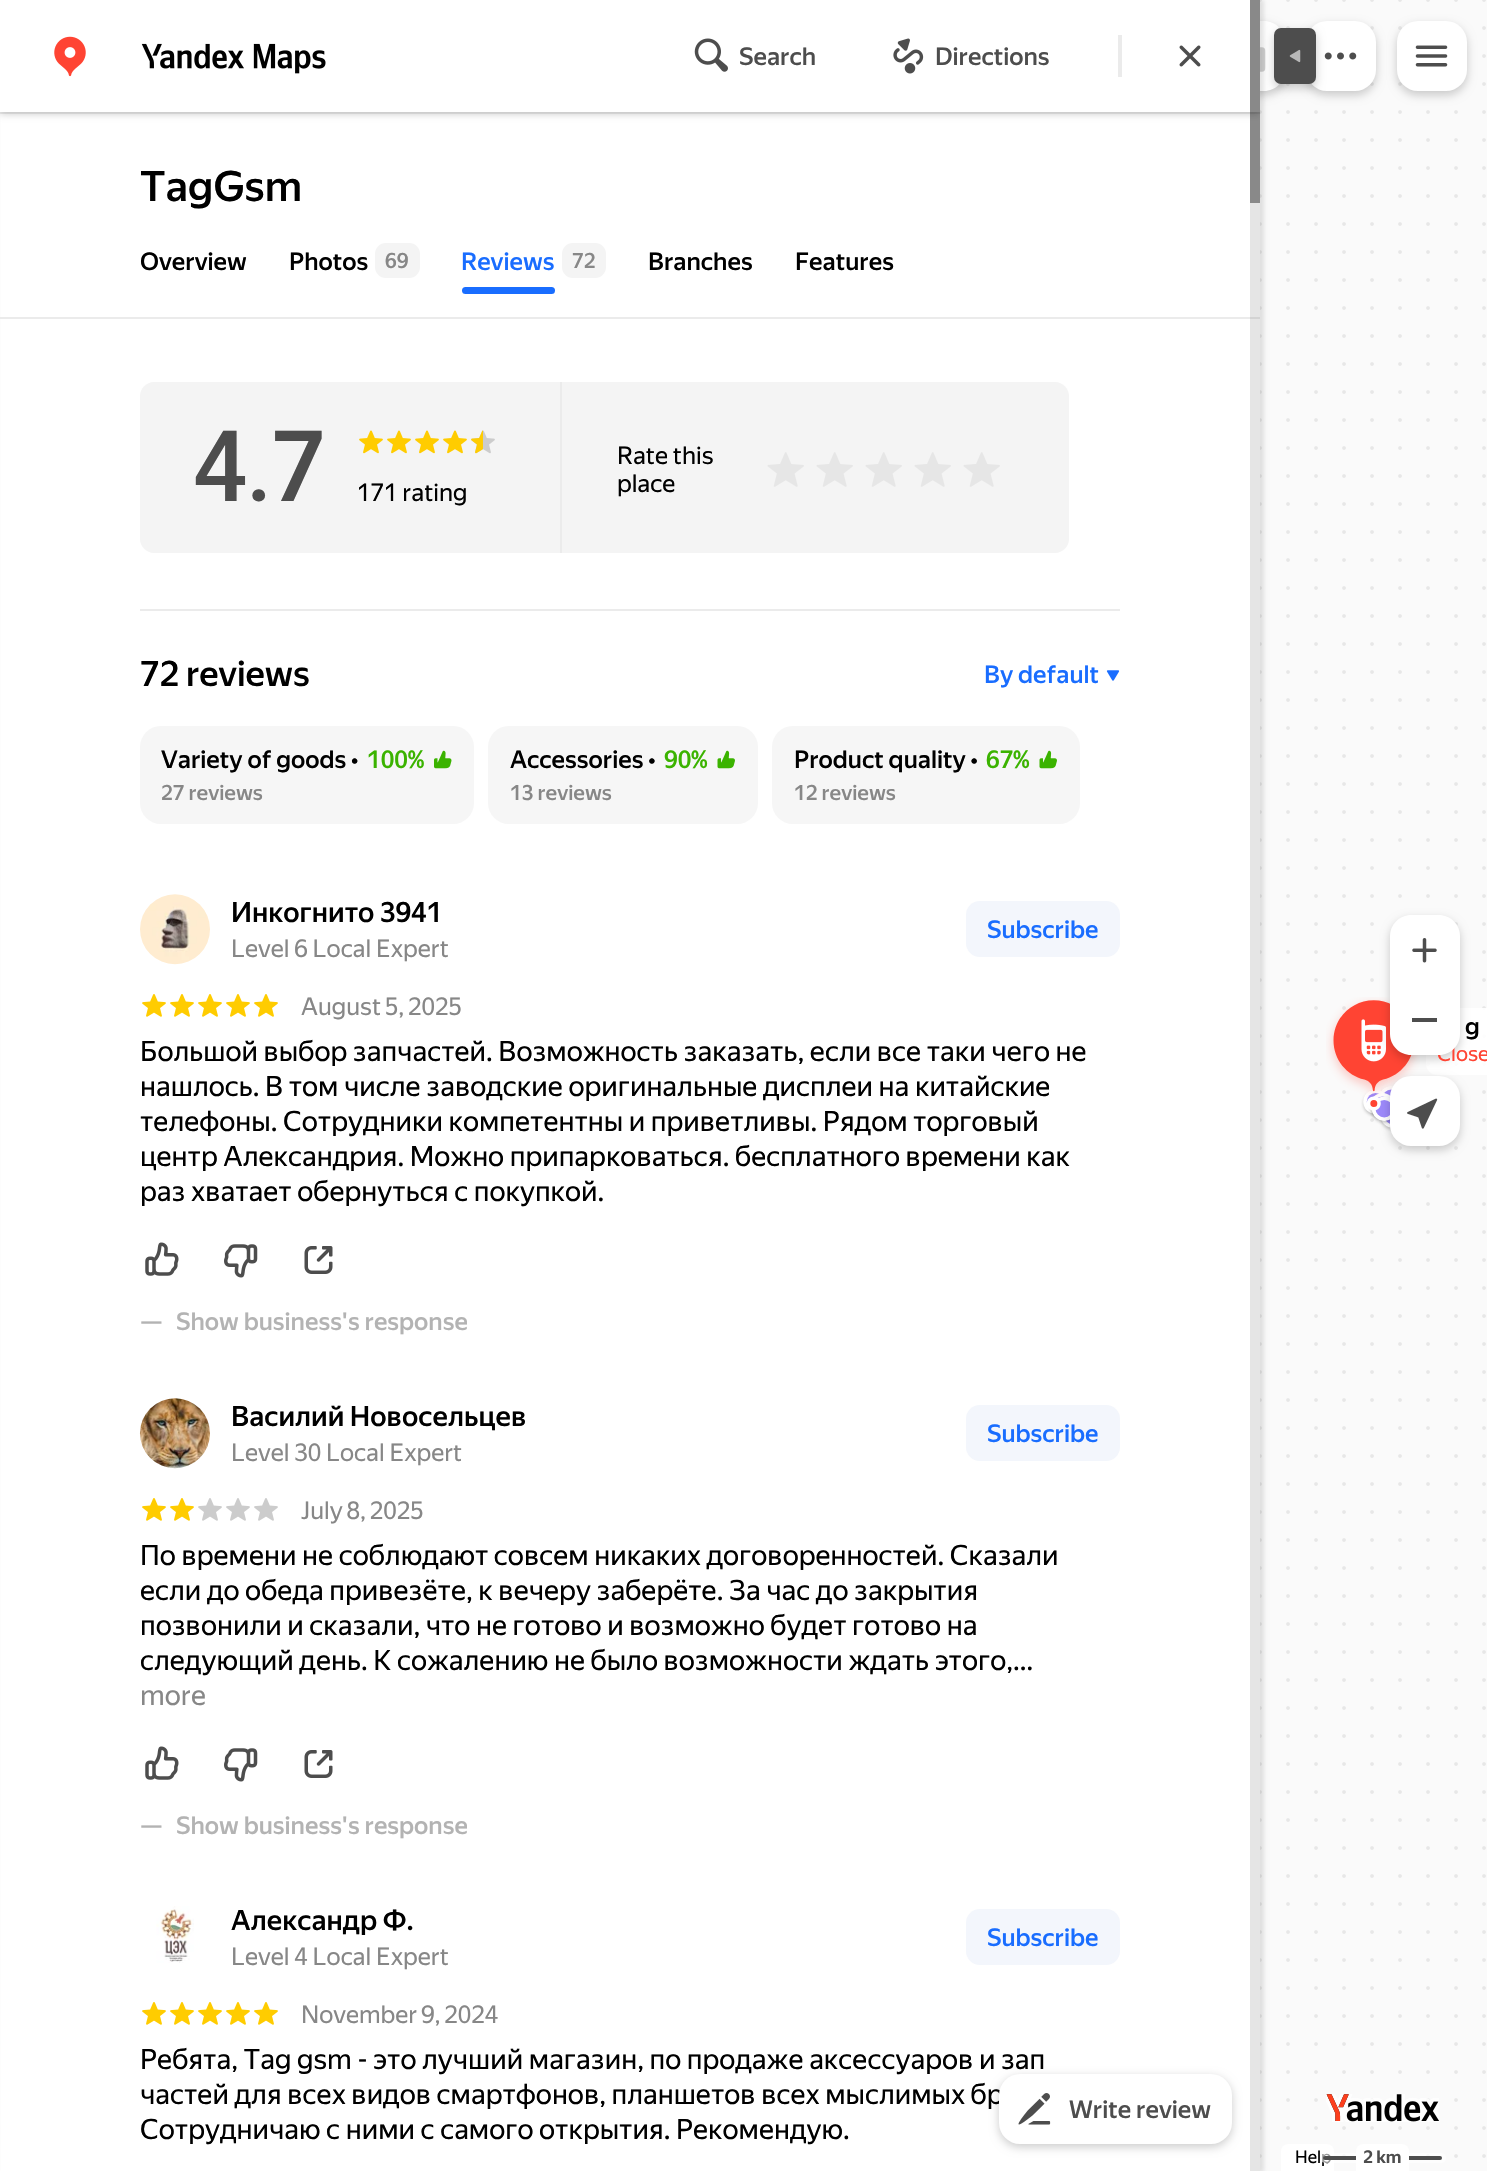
#include "include/core/SkBlurTypes.h"
#include "include/core/SkCanvas.h"
#include "include/core/SkData.h"
#include "include/core/SkFont.h"
#include "include/core/SkFontMgr.h"
#include "include/core/SkImage.h"
#include "include/core/SkMaskFilter.h"
#include "include/core/SkPaint.h"
#include "include/core/SkPathBuilder.h"
#include "include/core/SkTextBlob.h"
#include "include/effects/SkDashPathEffect.h"
#include "include/effects/SkGradientShader.h"
#include "include/utils/SkParsePath.h"

extern sk_sp<SkFontMgr> fontMgr;

void draw(SkCanvas* canvas) {
    SkPaint p;
    p.setAntiAlias(true);
    auto font = [&](const char* family, int weight, float size, bool italic = false) {
        SkFontStyle style(weight, SkFontStyle::kNormal_Width,
            italic ? SkFontStyle::kItalic_Slant : SkFontStyle::kUpright_Slant);
        SkFont result(fontMgr->matchFamilyStyle(family, style), size);
        result.setSubpixel(true);
        return result;
    };
    auto drawTracked = [&](const char* s, float x, float y, const SkFont& font, const SkPaint& ink, float letter, float word) {
        std::vector<SkGlyphID> glyphs(font.countText(s, strlen(s), SkTextEncoding::kUTF8));
        std::vector<float> xs(glyphs.size());
        font.textToGlyphs(s, strlen(s), SkTextEncoding::kUTF8, glyphs);
        font.getXPos(glyphs, xs, x);
        float extra = 0;
        for (size_t i = 0; i < glyphs.size(); i++) {
            xs[i] += extra;
            extra += letter + word * (glyphs[i] == font.unicharToGlyph(' '));
        }
        canvas->drawTextBlob(SkTextBlob::MakeFromPosHGlyphs(glyphs, xs, y, font), 0, 0, ink);
    };
    auto drawPhoto = [&](const char* path, float l, float t, float r, float b) {
        auto image = SkImages::DeferredFromEncodedData(SkData::MakeFromFileName(path));
        canvas->drawImageRect(image, SkRect::MakeLTRB(l, t, r, b), SkSamplingOptions());
    };
    canvas->clear(0xFFFFFFFF);
    drawPhoto("media/1.png", 1260, 0, 1487, 2171);
    p.setColor(0x33000000);
    p.setMaskFilter(SkMaskFilter::MakeBlur(kNormal_SkBlurStyle, 5));
    canvas->drawRoundRect(SkRect::MakeLTRB(1145, 25, 1285, 95), 21, 21, p);
    p.setMaskFilter(nullptr);
    p.setColor(0xFFFFFFFF);
    canvas->drawPath(SkPathBuilder().moveTo(1215, 21).lineTo(1264, 21).cubicTo(1275.5f, 21, 1285, 30.5f, 1285, 42).lineTo(1285, 70).cubicTo(1285, 81.5f, 1275.5f, 91, 1264, 91).lineTo(1215, 91).close().detach(), p);
    drawPhoto("media/23.png", 1260, 47, 1266, 72);
    p.setColor(0x1A000000);
    p.setMaskFilter(SkMaskFilter::MakeBlur(kNormal_SkBlurStyle, 2));
    canvas->drawRect(SkRect::MakeLTRB(4, 0, 1264, 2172), p);
    p.setMaskFilter(nullptr);
    p.setColor(0xFFFFFFFF);
    canvas->drawRect(SkRect::MakeLTRB(1, 114, 1260, 2171), p);
    p.setColor(0xFFEBEBEB);
    canvas->drawRect(SkRect::MakeLTRB(0, 112, 1260, 114), p);
    canvas->save();
    canvas->clipRect(SkRect::MakeLTRB(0, 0, 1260, 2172));
    p.setColor(0x33000000);
    p.setMaskFilter(SkMaskFilter::MakeBlur(kNormal_SkBlurStyle, 3.5f));
    canvas->drawRect(SkRect::MakeLTRB(0, 107, 1260, 114), p);
    p.setMaskFilter(nullptr);
    canvas->restore();
    p.setMaskFilter(SkMaskFilter::MakeBlur(kNormal_SkBlurStyle, 5));
    canvas->drawRoundRect(SkRect::MakeLTRB(1306, 25, 1376, 95), 21, 21, p);
    p.setMaskFilter(nullptr);
    p.setColor(0xFFFFFFFF);
    canvas->drawRoundRect(SkRect::MakeLTRB(1306, 21, 1376, 91), 21, 21, p);
    drawPhoto("media/24.png", 1324, 52, 1357, 60);
    p.setColor(0x33000000);
    p.setMaskFilter(SkMaskFilter::MakeBlur(kNormal_SkBlurStyle, 5));
    canvas->drawRoundRect(SkRect::MakeLTRB(1274, 32, 1316, 88), 7, 7, p);
    p.setMaskFilter(nullptr);
    p.setColor(0xFFFFFFFF);
    canvas->drawRect(SkRect::MakeLTRB(0, 0, 1260, 112), p);
    drawPhoto("media/2.png", 54, 36, 86, 77);
    drawPhoto("media/3.png", 141, 43, 326, 74);
    drawPhoto("media/4.png", 694, 38, 728, 72);
    auto font1 = font("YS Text", 500, 24.5f);
    p.setColor(0xFF4D4D4D);
    canvas->drawString("Search", 739, 65, font1, p);
    drawPhoto("media/5.png", 893, 38, 924, 74);
    canvas->drawString("Directions", 935, 65, font1, p);
    p.setColor(0xFFEBEBEB);
    canvas->drawRect(SkRect::MakeLTRB(1118, 35, 1122, 77), p);
    drawPhoto("media/6.png", 1179, 45, 1201, 67);
    auto font2 = font("YS Text", 500, 42);
    p.setColor(0xFF000000);
    canvas->drawString("TagGsm", 140, 201, font2, p);
    canvas->drawString("Overview", 140, 270, font1, p);
    canvas->drawString("Photos", 289, 270, font1, p);
    p.setColor(0xFFF4F4F4);
    canvas->drawRoundRect(SkRect::MakeLTRB(375, 243, 420, 278), 11, 11, p);
    auto font3 = font("YS Text", 500, 21);
    p.setColor(0xFF878787);
    canvas->drawString("69", 385, 268, font3, p);
    p.setColor(0xFF196DFF);
    canvas->drawString("Reviews", 461, 270, font1, p);
    p.setColor(0xFFF4F4F4);
    canvas->drawRoundRect(SkRect::MakeLTRB(562, 243, 606, 278), 11, 11, p);
    p.setColor(0xFF878787);
    canvas->drawString("72", 572, 268, font3, p);
    p.setColor(0xFF000000);
    canvas->drawString("Branches", 648, 270, font1, p);
    canvas->drawString("Features", 795, 270, font1, p);
    p.setColor(0xFF196DFF);
    canvas->drawRoundRect(SkRect::MakeLTRB(462, 287, 555, 294), 3.5f, 3.5f, p);
    p.setColor(0xFFEBEBEB);
    canvas->drawRect(SkRect::MakeLTRB(0, 317, 1260, 319), p);
    p.setColor(0xFFF4F4F4);
    canvas->drawPath(SkPathBuilder().moveTo(154, 382).lineTo(560, 382).lineTo(560, 553).lineTo(154, 553).cubicTo(146.5f, 553, 140, 546.5f, 140, 539).lineTo(140, 396).cubicTo(140, 388.5f, 146.5f, 382, 154, 382).close().detach(), p);
    auto font4 = font("YS Text", 500, 98);
    p.setColor(0xFF4D4D4D);
    canvas->drawString("4", 193, 501, font4, p);
    auto font5 = font("YS Text", 400, 98);
    canvas->drawString(".", 247, 501, font5, p);
    canvas->drawString("7", 271, 501, font4, p);
    drawPhoto("media/7.png", 359, 430, 383, 454);
    drawPhoto("media/7.png", 387, 430, 411, 454);
    drawPhoto("media/7.png", 415, 430, 439, 454);
    drawPhoto("media/7.png", 443, 430, 467, 454);
    drawPhoto("media/8.png", 471, 430, 495, 454);
    auto font6 = font("YS Text", 400, 24.5f);
    p.setColor(0xFF000000);
    canvas->drawString("171 rating", 357, 501, font6, p);
    p.setColor(0xFFF4F4F4);
    canvas->drawPath(SkPathBuilder().moveTo(560, 382).lineTo(1055, 382).cubicTo(1062.5f, 382, 1069, 388.5f, 1069, 396).lineTo(1069, 539).cubicTo(1069, 546.5f, 1062.5f, 553, 1055, 553).lineTo(560, 553).close().detach(), p);
    p.setColor(0xFFEBEBEB);
    canvas->drawRect(SkRect::MakeLTRB(560, 382, 562, 553), p);
    p.setColor(0xFF000000);
    canvas->drawString("Rate this", 617, 464, font6, p);
    canvas->drawString("place", 617, 492, font6, p);
    drawPhoto("media/9.png", 767, 452, 804, 487);
    drawPhoto("media/9.png", 816, 452, 853, 487);
    drawPhoto("media/9.png", 865, 452, 902, 487);
    drawPhoto("media/9.png", 914, 452, 951, 487);
    drawPhoto("media/9.png", 963, 452, 1000, 487);
    p.setColor(0xFFEBEBEB);
    canvas->drawRect(SkRect::MakeLTRB(140, 609, 1120, 611), p);
    auto font7 = font("YS Text", 500, 35);
    p.setColor(0xFF000000);
    canvas->drawString("72 reviews", 140, 686, font7, p);
    p.setColor(0xFF196DFF);
    canvas->drawString("By default", 984, 683, font1, p);
    drawPhoto("media/10.png", 1106, 670, 1120, 681);
    p.setColor(0xFFF6F6F6);
    canvas->drawRoundRect(SkRect::MakeLTRB(140, 726, 474, 824), 21, 21, p);
    p.setColor(0xFF000000);
    canvas->drawString("Variety of goods •", 161, 768, font1, p);
    p.setColor(0xFF3BB300);
    canvas->drawString("100%", 367, 768, font1, p);
    drawPhoto("media/11.png", 434, 750, 452, 769);
    p.setColor(0xFF878787);
    canvas->drawString("27 reviews", 161, 800, font3, p);
    p.setColor(0xFFF6F6F6);
    canvas->drawRoundRect(SkRect::MakeLTRB(488, 726, 758, 824), 21, 21, p);
    p.setColor(0xFF000000);
    canvas->drawString("Accessories •", 510, 768, font1, p);
    p.setColor(0xFF3BB300);
    canvas->drawString("90%", 664, 768, font1, p);
    drawPhoto("media/12.png", 717, 750, 735, 769);
    p.setColor(0xFF878787);
    canvas->drawString("13 reviews", 510, 800, font3, p);
    p.setColor(0xFFF6F6F6);
    canvas->drawRoundRect(SkRect::MakeLTRB(772, 726, 1080, 824), 21, 21, p);
    p.setColor(0xFF000000);
    canvas->drawString("Product quality •", 794, 768, font1, p);
    p.setColor(0xFF3BB300);
    canvas->drawString("67%", 986, 768, font1, p);
    drawPhoto("media/12.png", 1039, 750, 1057, 769);
    p.setColor(0xFF878787);
    canvas->drawString("12 reviews", 794, 800, font3, p);
    drawPhoto("media/13.png", 140, 894, 210, 965);
    auto font8 = font("YS Text", 500, 28);
    p.setColor(0xFF000000);
    canvas->drawString("Инкогнито 3941", 231, 922, font8, p);
    p.setColor(0xFF878787);
    canvas->drawString("Level 6 Local Expert", 231, 957, font6, p);
    p.setColor(0xFFF3F6FC);
    canvas->drawRoundRect(SkRect::MakeLTRB(966, 901, 1120, 957), 14, 14, p);
    p.setColor(0xFF196DFF);
    canvas->drawString("Subscribe", 987, 938, font1, p);
    drawPhoto("media/14.png", 142, 994, 166, 1017);
    drawPhoto("media/14.png", 170, 994, 194, 1017);
    drawPhoto("media/14.png", 198, 994, 222, 1017);
    drawPhoto("media/14.png", 226, 994, 250, 1017);
    drawPhoto("media/14.png", 254, 994, 278, 1017);
    p.setColor(0xFF878787);
    drawTracked("August 5, 2025", 301, 1015, font6, p, 0, -1);
    auto font9 = font("YS Text", 400, 28);
    p.setColor(0xFF000000);
    {
        const struct { const char* s; float x, y; } items[] = {
            {"Большой выбор запчастей. Возможность заказать, если все таки чего не", 140, 1061},
            {"нашлось. В том числе заводские оригинальные дисплеи на китайские", 140, 1096},
            {"телефоны. Сотрудники компетентны и приветливы. Рядом торговый", 140, 1131},
            {"центр Александрия. Можно припарковаться. бесплатного времени как", 140, 1166},
            {"раз хватает обернуться с покупкой.", 140, 1201},
        };
        for (auto [s, x, y] : items) {
            canvas->drawString(s, x, y, font9, p);
        }
    }
    drawPhoto("media/15.png", 145, 1242, 179, 1276);
    drawPhoto("media/16.png", 224, 1244, 258, 1278);
    drawPhoto("media/17.png", 304, 1246, 333, 1274);
    p.setColor(0xFFB3B3B3);
    canvas->drawString("—", 140, 1330, font1, p);
    canvas->drawString("Show business's response", 176, 1330, font1, p);
    drawPhoto("media/18.png", 139, 1398, 210, 1469);
    p.setColor(0xFF000000);
    canvas->drawString("Василий Новосельцев", 231, 1426, font8, p);
    p.setColor(0xFF878787);
    canvas->drawString("Level 30 Local Expert", 231, 1461, font6, p);
    p.setColor(0xFFF3F6FC);
    canvas->drawRoundRect(SkRect::MakeLTRB(966, 1405, 1120, 1461), 14, 14, p);
    p.setColor(0xFF196DFF);
    canvas->drawString("Subscribe", 987, 1442, font1, p);
    drawPhoto("media/14.png", 142, 1498, 166, 1521);
    drawPhoto("media/14.png", 170, 1498, 194, 1521);
    drawPhoto("media/19.png", 198, 1498, 222, 1521);
    drawPhoto("media/19.png", 226, 1498, 250, 1521);
    drawPhoto("media/19.png", 254, 1498, 278, 1521);
    p.setColor(0xFF878787);
    drawTracked("July 8, 2025", 301, 1519, font6, p, 0, -1);
    p.setColor(0xFF000000);
    {
        const struct { const char* s; float x, y; } items[] = {
            {"По времени не соблюдают совсем никаких договоренностей. Сказали", 140, 1565},
            {"если до обеда привезёте, к вечеру заберёте. За час до закрытия", 140, 1600},
            {"позвонили и сказали, что не готово и возможно будет готово на", 140, 1635},
            {"следующий день. К сожалению не было возможности ждать этого,…", 140, 1670},
        };
        for (auto [s, x, y] : items) {
            canvas->drawString(s, x, y, font9, p);
        }
    }
    p.setColor(0xFF878787);
    canvas->drawString("more", 140, 1705, font9, p);
    drawPhoto("media/15.png", 145, 1746, 179, 1780);
    drawPhoto("media/16.png", 224, 1748, 258, 1782);
    drawPhoto("media/17.png", 304, 1750, 333, 1778);
    p.setColor(0xFFB3B3B3);
    canvas->drawString("—", 140, 1834, font1, p);
    canvas->drawString("Show business's response", 176, 1834, font1, p);
    drawPhoto("media/20.png", 156, 1906, 194, 1963);
    p.setColor(0xFF000000);
    canvas->drawString("Александр Ф.", 231, 1930, font8, p);
    p.setColor(0xFF878787);
    canvas->drawString("Level 4 Local Expert", 231, 1965, font6, p);
    p.setColor(0xFFF3F6FC);
    canvas->drawRoundRect(SkRect::MakeLTRB(966, 1909, 1120, 1965), 14, 14, p);
    p.setColor(0xFF196DFF);
    canvas->drawString("Subscribe", 987, 1946, font1, p);
    drawPhoto("media/14.png", 142, 2002, 166, 2025);
    drawPhoto("media/14.png", 170, 2002, 194, 2025);
    drawPhoto("media/14.png", 198, 2002, 222, 2025);
    drawPhoto("media/14.png", 226, 2002, 250, 2025);
    drawPhoto("media/14.png", 254, 2002, 278, 2025);
    p.setColor(0xFF878787);
    drawTracked("November 9, 2024", 301, 2023, font6, p, 0, -1);
    p.setColor(0xFF000000);
    {
        const struct { const char* s; float x, y; } items[] = {
            {"Ребята, Tag gsm - это лучший магазин, по продаже аксессуаров и зап", 140, 2069},
            {"частей для всех видов смартфонов, планшетов всех мыслимых бр", 140, 2104},
            {"Сотрудничаю с ними с самого открытия. Рекомендую.", 140, 2139},
        };
        for (auto [s, x, y] : items) {
            canvas->drawString(s, x, y, font9, p);
        }
    }
    p.setColor(0x33000000);
    p.setMaskFilter(SkMaskFilter::MakeBlur(kNormal_SkBlurStyle, 5));
    canvas->drawRoundRect(SkRect::MakeLTRB(999, 2077, 1232, 2147), 21, 21, p);
    p.setMaskFilter(nullptr);
    p.setColor(0xFFFFFFFF);
    canvas->drawRoundRect(SkRect::MakeLTRB(999, 2074, 1232, 2144), 21, 21, p);
    drawPhoto("media/21.png", 1018, 2093, 1051, 2125);
    p.setColor(0xFF4D4D4D);
    canvas->drawString("Write review", 1069, 2118, font1, p);
    p.setColor(0x1A000000);
    canvas->drawRect(SkRect::MakeLTRB(1250, 0, 1260, 2171), p);
    p.setColor(0x66000000);
    canvas->drawRect(SkRect::MakeLTRB(1250, 0, 1260, 203), p);
    p.setColor(0xFF4D4D4D);
    canvas->drawRoundRect(SkRect::MakeLTRB(1274, 28, 1316, 84), 7, 7, p);
    drawPhoto("media/22.png", 1289, 49, 1301, 63);
    p.setColor(0x33000000);
    p.setMaskFilter(SkMaskFilter::MakeBlur(kNormal_SkBlurStyle, 5));
    canvas->drawRoundRect(SkRect::MakeLTRB(1397, 25, 1467, 95), 21, 21, p);
    p.setMaskFilter(nullptr);
    p.setColor(0xFFFFFFFF);
    canvas->drawRoundRect(SkRect::MakeLTRB(1397, 21, 1467, 91), 21, 21, p);
    drawPhoto("media/25.png", 1415, 45, 1448, 67);
    drawPhoto("media/32.png", 1381, 1086, 1394, 1097);
    drawPhoto("media/31.png", 1361, 1090, 1385, 1118);
    drawPhoto("media/35.png", 1379, 1119, 1392, 1132);
    drawPhoto("media/33.png", 1368, 1093, 1391, 1121);
    drawPhoto("media/34.png", 1370, 1096, 1390, 1125);
    drawPhoto("media/29.png", 1326, 997, 1420, 1110);
    drawPhoto("media/30.png", 1361, 1019, 1386, 1062);
    p.setColor(0xE6FFFFFF);
    canvas->drawPath(SkPathBuilder().moveTo(1437, 1008).lineTo(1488, 1008).lineTo(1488, 1075).lineTo(1437, 1075).cubicTo(1431, 1075, 1426, 1070, 1426, 1064).lineTo(1426, 1019).cubicTo(1426, 1013, 1431, 1008, 1437, 1008).close().detach(), p);
    p.setColor(0x33000000);
    p.setMaskFilter(SkMaskFilter::MakeBlur(kNormal_SkBlurStyle, 5));
    canvas->drawRoundRect(SkRect::MakeLTRB(1390, 919, 1460, 1059), 21, 21, p);
    p.setMaskFilter(nullptr);
    p.setColor(0xFFFFFFFF);
    canvas->drawPath(SkPathBuilder().moveTo(1411, 915).lineTo(1439, 915).cubicTo(1450.5f, 915, 1460, 924.5f, 1460, 936).lineTo(1460, 985).lineTo(1390, 985).lineTo(1390, 936).cubicTo(1390, 924.5f, 1399.5f, 915, 1411, 915).close().detach(), p);
    drawPhoto("media/26.png", 1412, 938, 1437, 963);
    auto font10 = font("YS Text", 400, 21);
    p.setColor(0xFFFF4433);
    canvas->drawString("Close", 1437, 1061, font10, p);
    p.setColor(0xFFFFFFFF);
    canvas->drawPath(SkPathBuilder().moveTo(1390, 985).lineTo(1460, 985).lineTo(1460, 1034).cubicTo(1460, 1045.5f, 1450.5f, 1055, 1439, 1055).lineTo(1411, 1055).cubicTo(1399.5f, 1055, 1390, 1045.5f, 1390, 1034).close().detach(), p);
    p.setColor(0xFF4D4D4D);
    canvas->drawRect(SkRect::MakeLTRB(1412, 1018, 1437, 1022), p);
    p.setColor(0x33000000);
    p.setMaskFilter(SkMaskFilter::MakeBlur(kNormal_SkBlurStyle, 5));
    canvas->drawRoundRect(SkRect::MakeLTRB(1390, 1080, 1460, 1150), 21, 21, p);
    p.setMaskFilter(nullptr);
    p.setColor(0xFFFFFFFF);
    canvas->drawRoundRect(SkRect::MakeLTRB(1390, 1076, 1460, 1146), 21, 21, p);
    drawPhoto("media/27.png", 1407, 1098, 1438, 1129);
    drawPhoto("media/28.png", 1326, 2094, 1439, 2122);
    canvas->drawPath(SkPathBuilder().moveTo(1288, 2144).lineTo(1327, 2144).cubicTo(1331, 2144, 1334, 2147, 1334, 2151).lineTo(1334, 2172).lineTo(1281, 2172).lineTo(1281, 2151).cubicTo(1281, 2147, 1284, 2144, 1288, 2144).close().detach(), p);
    auto font11 = font("YS Text", 400, 17.5f);
    p.setColor(0xFF000000);
    canvas->drawString("Help", 1295, 2163, font11, p);
    p.setColor(0x99FFFFFF);
    canvas->drawRoundRect(SkRect::MakeLTRB(1320, 2153, 1446, 2163), 5, 5, p);
    p.setColor(0xFF4D4D4D);
    canvas->drawRoundRect(SkRect::MakeLTRB(1323, 2156, 1442, 2160), 2, 2, p);
    p.setColor(0xFFFFFFFF);
    canvas->drawPath(SkPathBuilder().moveTo(1363, 2144).lineTo(1402, 2144).cubicTo(1406, 2144, 1409, 2147, 1409, 2151).lineTo(1409, 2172).lineTo(1356, 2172).lineTo(1356, 2151).cubicTo(1356, 2147, 1359, 2144, 1363, 2144).close().detach(), p);
    auto font12 = font("YS Text", 700, 17.5f);
    p.setColor(0xFF4D4D4D);
    canvas->drawString("2 km", 1363, 2163, font12, p);
    p.setColor(0xFF000000);
    canvas->drawString("g", 1465, 1035, font1, p);
}
